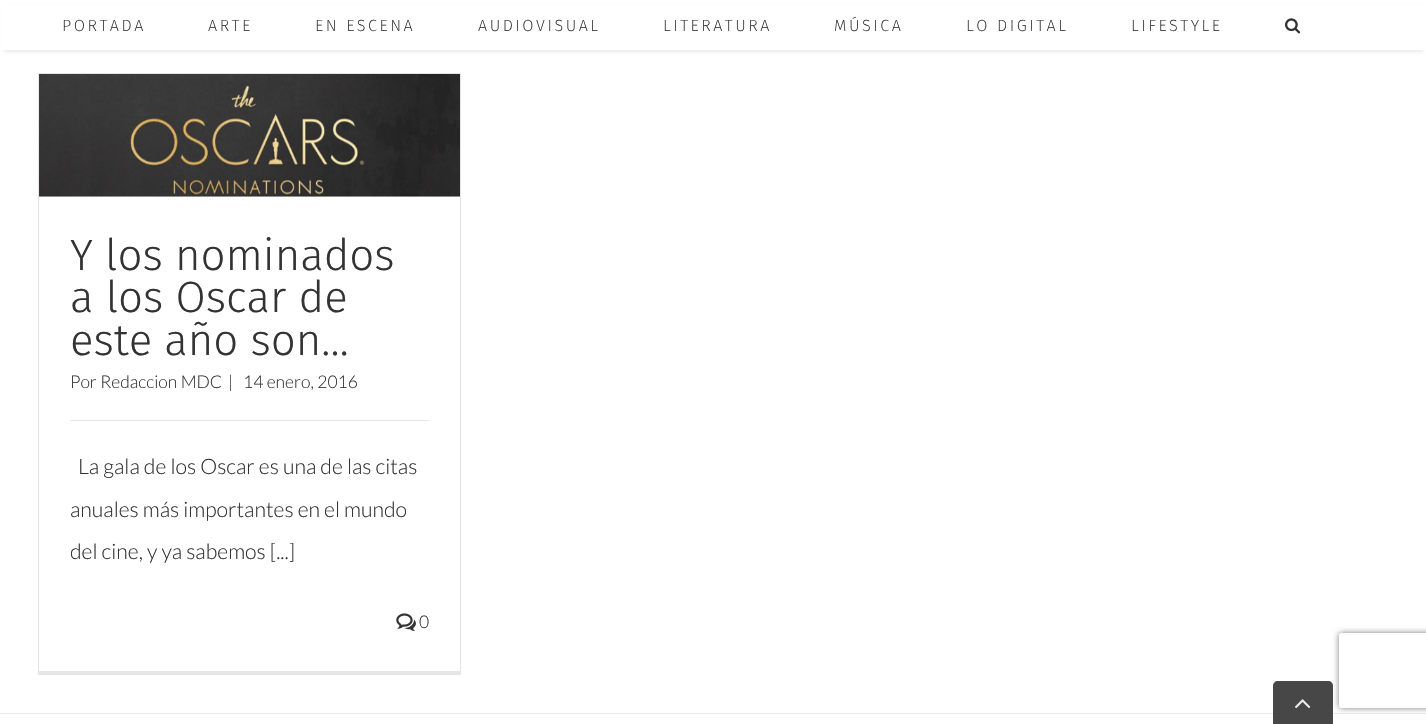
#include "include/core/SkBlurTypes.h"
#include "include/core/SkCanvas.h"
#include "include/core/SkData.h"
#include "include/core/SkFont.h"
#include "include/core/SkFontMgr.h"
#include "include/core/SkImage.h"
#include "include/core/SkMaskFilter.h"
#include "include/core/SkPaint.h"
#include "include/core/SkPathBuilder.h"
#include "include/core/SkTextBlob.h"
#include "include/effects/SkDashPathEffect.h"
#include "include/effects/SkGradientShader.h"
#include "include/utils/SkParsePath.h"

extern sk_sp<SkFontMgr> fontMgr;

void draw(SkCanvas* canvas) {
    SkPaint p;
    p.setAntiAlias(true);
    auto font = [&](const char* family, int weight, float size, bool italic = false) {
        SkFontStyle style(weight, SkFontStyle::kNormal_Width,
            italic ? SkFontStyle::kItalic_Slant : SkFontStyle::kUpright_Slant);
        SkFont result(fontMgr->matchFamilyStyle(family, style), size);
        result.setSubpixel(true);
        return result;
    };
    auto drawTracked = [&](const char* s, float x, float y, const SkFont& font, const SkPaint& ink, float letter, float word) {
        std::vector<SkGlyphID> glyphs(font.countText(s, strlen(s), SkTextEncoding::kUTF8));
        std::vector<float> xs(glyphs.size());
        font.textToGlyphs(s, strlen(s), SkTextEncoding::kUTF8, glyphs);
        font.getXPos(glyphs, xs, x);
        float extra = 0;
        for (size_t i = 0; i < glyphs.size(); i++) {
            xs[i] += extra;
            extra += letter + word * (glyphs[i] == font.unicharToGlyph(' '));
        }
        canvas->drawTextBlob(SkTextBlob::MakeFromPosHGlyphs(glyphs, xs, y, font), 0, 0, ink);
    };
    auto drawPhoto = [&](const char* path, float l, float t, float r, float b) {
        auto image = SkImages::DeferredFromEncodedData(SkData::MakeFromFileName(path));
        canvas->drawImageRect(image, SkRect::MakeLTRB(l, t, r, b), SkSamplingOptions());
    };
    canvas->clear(0xFFFFFFFF);
    p.setColor(0x1F000000);
    p.setMaskFilter(SkMaskFilter::MakeBlur(kNormal_SkBlurStyle, 2));
    canvas->drawRect(SkRect::MakeLTRB(4, 9, 1423, 51), p);
    p.setMaskFilter(nullptr);
    p.setColor(0xFFFFFFFF);
    canvas->drawRect(SkRect::MakeLTRB(1, 6, 1426, 50), p);
    auto font1 = font("Fira Sans", 200, 16.25f);
    p.setColor(0xFF333333);
    {
        const struct { const char* s; float x, y; } items[] = {
            {"PORTADA", 62, 31},
            {"ARTE", 208, 31},
            {"EN ESCENA", 315, 31},
            {"AUDIOVISUAL", 478, 31},
            {"LITERATURA", 663, 31},
            {"MÚSICA", 834, 31},
            {"LO DIGITAL", 966, 31},
            {"LIFESTYLE", 1131, 31},
        };
        for (auto [s, x, y] : items) {
            drawTracked(s, x, y, font1, p, 2.5f, 0);
        }
    }
    drawPhoto("media/1.png", 1285, 18, 1301, 34);
    {
        const struct { float l, t, r, b; SkColor color; } items[] = {
            {38, 73, 461, 74, 0xFFE5E5E5},
            {460, 73, 461, 675, 0xFFE5E5E5},
            {38, 671, 461, 675, 0xFFE5E5E5},
            {38, 73, 39, 675, 0xFFE5E5E5},
            {39, 196, 460, 197, 0xFFE5E5E5},
        };
        for (auto [l, t, r, b, color] : items) {
            p.setColor(color);
            canvas->drawRect(SkRect::MakeLTRB(l, t, r, b), p);
        }
    }
    drawPhoto("media/2.png", 39, 74, 460, 197);
    auto font2 = font("Fira Sans", 300, 43.75f);
    p.setColor(0xFF333333);
    {
        const struct { const char* s; float x, y; } items[] = {
            {"Y los nominados", 70, 270},
            {"a los Oscar de", 70, 312},
            {"este año son…", 70, 355},
        };
        for (auto [s, x, y] : items) {
            canvas->drawString(s, x, y, font2, p);
        }
    }
    auto font3 = font("Lato", 300, 17.5f);
    {
        const struct { const char* s; float x, y; } items[] = {
            {"Por Redaccion MDC", 70, 388},
            {"|", 228, 388},
            {"14 enero, 2016", 243, 388},
        };
        for (auto [s, x, y] : items) {
            canvas->drawString(s, x, y, font3, p);
        }
    }
    p.setColor(0xFFE5E5E5);
    canvas->drawRect(SkRect::MakeLTRB(70, 420, 429, 421), p);
    auto font4 = font("Lato", 300, 21.25f);
    p.setColor(0xFF333333);
    {
        const struct { const char* s; float x, y; } items[] = {
            {"La gala de los Oscar es una de las citas", 78, 474},
            {"anuales más importantes en el mundo", 70, 517},
            {"del cine, y ya sabemos [...]", 70, 559},
        };
        for (auto [s, x, y] : items) {
            canvas->drawString(s, x, y, font4, p);
        }
    }
    drawPhoto("media/3.png", 396, 613, 416, 631);
    canvas->drawString("0", 419, 628, font3, p);
    p.setColor(0xFFE9EAEE);
    canvas->drawRect(SkRect::MakeLTRB(0, 713, 1426, 714), p);
    canvas->save();
    canvas->clipPath(SkPathBuilder(SkPathFillType::kEvenOdd).moveTo(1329, 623).lineTo(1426, 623).lineTo(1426, 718).lineTo(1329, 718).close().moveTo(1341.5f, 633).lineTo(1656.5f, 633).cubicTo(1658, 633, 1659, 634, 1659, 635.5f).lineTo(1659, 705.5f).cubicTo(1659, 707, 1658, 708, 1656.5f, 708).lineTo(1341.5f, 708).cubicTo(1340, 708, 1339, 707, 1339, 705.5f).lineTo(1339, 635.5f).cubicTo(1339, 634, 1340, 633, 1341.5f, 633).close().detach(), true);
    p.setColor(0xFF808080);
    p.setMaskFilter(SkMaskFilter::MakeBlur(kNormal_SkBlurStyle, 3));
    canvas->drawRoundRect(SkRect::MakeLTRB(1339, 633, 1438, 708), 2.5f, 2.5f, p);
    p.setMaskFilter(nullptr);
    canvas->restore();
    p.setColor(0xE6333333);
    canvas->drawPath(SkPathBuilder().moveTo(1278, 681).lineTo(1328, 681).cubicTo(1331, 681, 1333, 683, 1333, 686).lineTo(1333, 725).lineTo(1273, 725).lineTo(1273, 686).cubicTo(1273, 683, 1275, 681, 1278, 681).close().detach(), p);
    drawPhoto("media/4.png", 1295, 699, 1311, 709);
}
